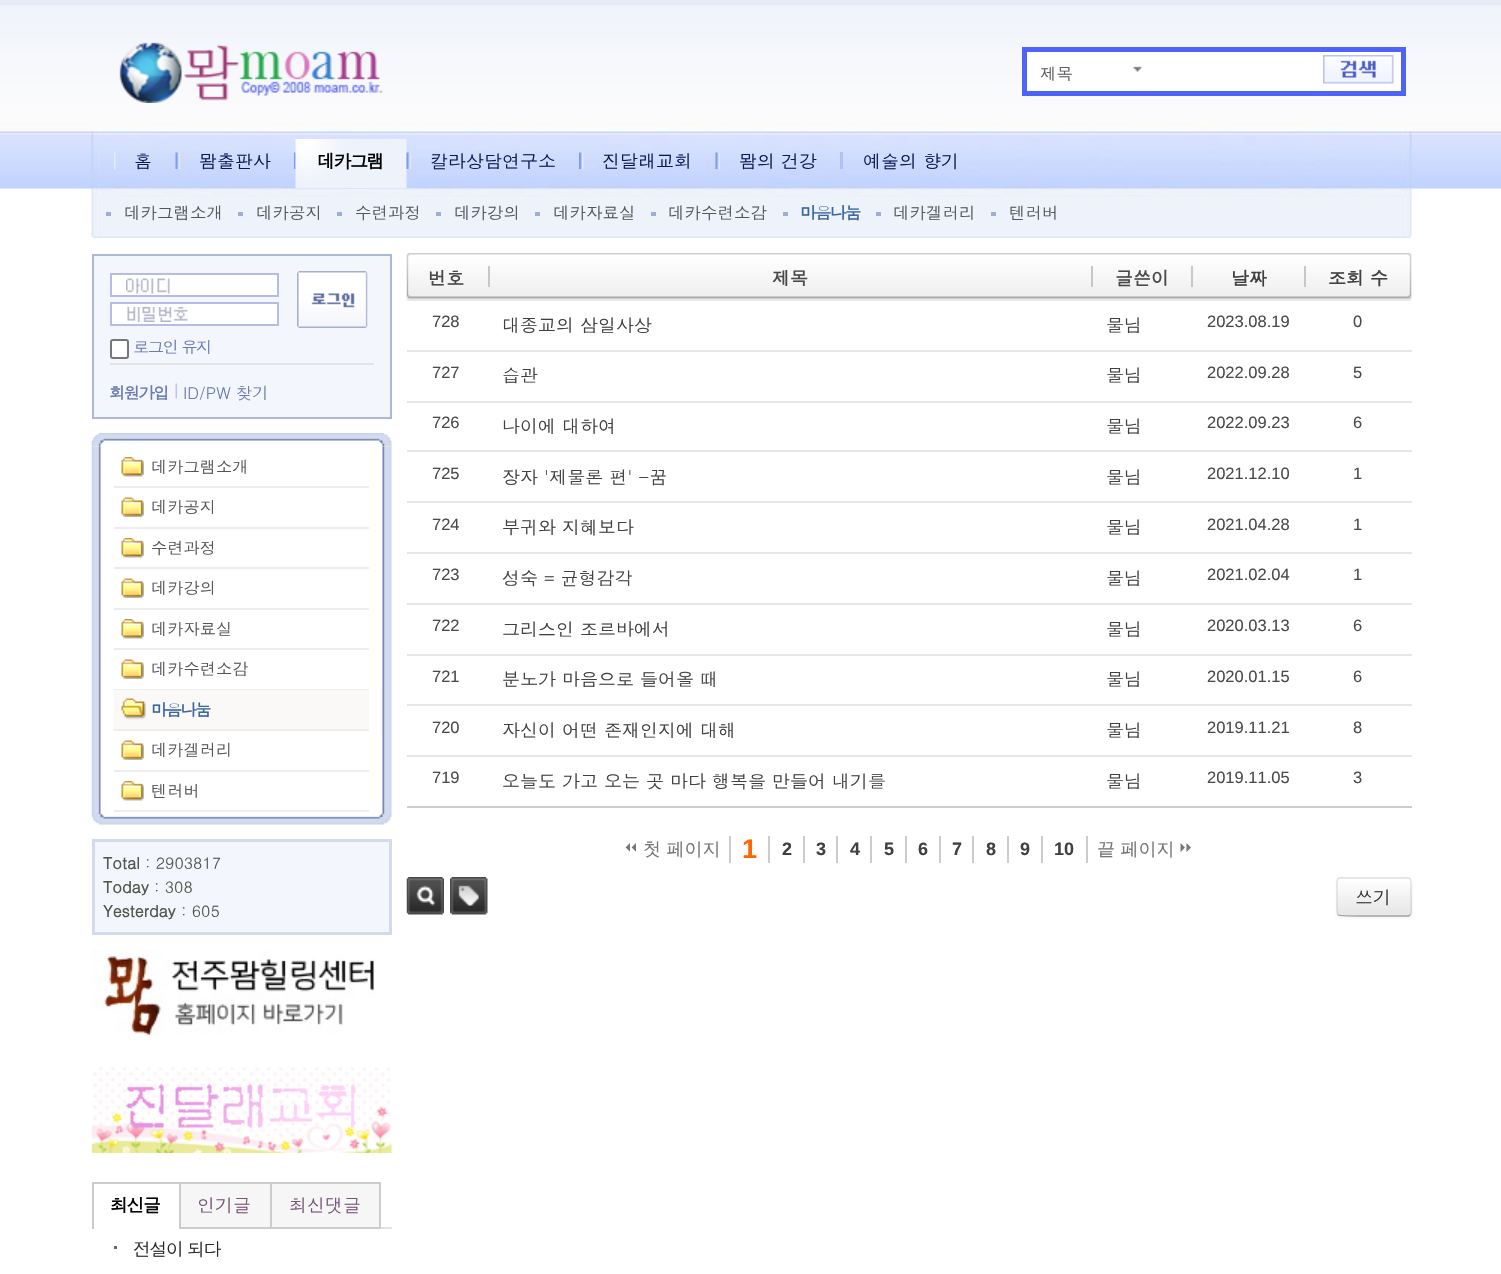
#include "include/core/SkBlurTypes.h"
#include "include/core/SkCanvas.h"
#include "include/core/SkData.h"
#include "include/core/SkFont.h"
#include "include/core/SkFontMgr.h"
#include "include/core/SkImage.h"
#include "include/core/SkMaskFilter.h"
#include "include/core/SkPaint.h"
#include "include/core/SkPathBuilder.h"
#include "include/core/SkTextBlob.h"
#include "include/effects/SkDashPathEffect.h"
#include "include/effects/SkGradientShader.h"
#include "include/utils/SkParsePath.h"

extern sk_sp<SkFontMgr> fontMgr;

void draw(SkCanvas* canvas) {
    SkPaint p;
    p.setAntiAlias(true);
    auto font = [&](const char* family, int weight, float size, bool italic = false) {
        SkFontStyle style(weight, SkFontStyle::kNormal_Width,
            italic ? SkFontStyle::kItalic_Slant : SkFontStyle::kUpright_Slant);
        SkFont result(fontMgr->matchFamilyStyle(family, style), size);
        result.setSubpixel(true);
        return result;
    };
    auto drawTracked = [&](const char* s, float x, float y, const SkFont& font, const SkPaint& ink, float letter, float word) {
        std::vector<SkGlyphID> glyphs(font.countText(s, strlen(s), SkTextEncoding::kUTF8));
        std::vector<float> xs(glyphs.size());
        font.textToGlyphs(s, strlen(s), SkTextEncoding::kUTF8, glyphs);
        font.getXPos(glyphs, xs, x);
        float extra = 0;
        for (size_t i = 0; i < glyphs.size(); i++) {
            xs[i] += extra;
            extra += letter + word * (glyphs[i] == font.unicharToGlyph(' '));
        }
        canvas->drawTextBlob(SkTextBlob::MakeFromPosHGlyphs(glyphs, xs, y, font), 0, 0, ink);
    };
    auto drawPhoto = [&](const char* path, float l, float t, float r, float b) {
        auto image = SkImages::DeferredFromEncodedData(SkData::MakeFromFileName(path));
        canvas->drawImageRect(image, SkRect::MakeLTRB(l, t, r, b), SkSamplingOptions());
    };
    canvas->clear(0xFFFFFFFF);
    drawPhoto("media/1.png", 0, 0, 1501, 189);
    drawPhoto("media/2.png", 91, 125, 1412, 238);
    drawPhoto("media/3.png", 119, 42, 383, 103);
    p.setColor(0xFFFFFFFF);
    canvas->drawRect(SkRect::MakeLTRB(1024.5f, 49.5f, 1403.5f, 93.5f), p);
    p.setStyle(SkPaint::kStroke_Style);
    p.setStrokeWidth(5);
    p.setColor(0xFF4E64F8);
    canvas->drawRect(SkRect::MakeLTRB(1024.5f, 49.5f, 1403.5f, 93.5f), p);
    drawPhoto("media/4.png", 1133, 57, 1151, 82);
    auto font1 = font("Dotum", 400, 16.5f);
    p.setStyle(SkPaint::kFill_Style);
    p.setColor(0xFF5C5C5C);
    canvas->drawString("제목", 1040, 80, font1, p);
    drawPhoto("media/5.png", 1323, 55, 1394, 84);
    drawPhoto("media/6.png", 114, 152, 116, 169);
    auto font2 = font("Dotum", 400, 18);
    p.setColor(0xFF091A53);
    canvas->drawString("홈", 134, 168, font2, p);
    drawPhoto("media/7.png", 175, 152, 180, 169);
    canvas->drawString("뫔출판사", 199, 168, font2, p);
    drawPhoto("media/8.png", 294, 152, 296, 169);
    drawPhoto("media/9.png", 295, 139, 407, 189);
    auto font3 = font("Dotum", 700, 18);
    p.setColor(0xFF000000);
    drawTracked("데카그램", 317, 168, font3, p, -1.5f, 0);
    drawPhoto("media/10.png", 406, 152, 411, 169);
    p.setColor(0xFF091A53);
    canvas->drawString("칼라상담연구소", 430, 168, font2, p);
    drawPhoto("media/11.png", 579, 152, 584, 169);
    canvas->drawString("진달래교회", 602, 168, font2, p);
    drawPhoto("media/12.png", 715, 152, 720, 169);
    canvas->drawString("뫔의 건강", 739, 168, font2, p);
    p.setColor(0xFFAEC1FD);
    canvas->drawRect(SkRect::MakeLTRB(840, 152, 843, 169), p);
    p.setColor(0xFF091A53);
    canvas->drawString("예술의 향기", 863, 168, font2, p);
    p.setColor(0xFF9DB0D4);
    canvas->drawRect(SkRect::MakeLTRB(106, 212, 111, 216), p);
    p.setColor(0xFF555555);
    canvas->drawString("데카그램소개", 124, 219, font1, p);
    p.setColor(0xFF9DB0D4);
    canvas->drawRect(SkRect::MakeLTRB(238, 212, 243, 216), p);
    p.setColor(0xFF555555);
    canvas->drawString("데카공지", 256, 219, font1, p);
    p.setColor(0xFF9DB0D4);
    canvas->drawRect(SkRect::MakeLTRB(337, 212, 342, 216), p);
    p.setColor(0xFF555555);
    canvas->drawString("수련과정", 355, 219, font1, p);
    p.setColor(0xFF9DB0D4);
    canvas->drawRect(SkRect::MakeLTRB(436, 212, 441, 216), p);
    p.setColor(0xFF555555);
    canvas->drawString("데카강의", 454, 219, font1, p);
    p.setColor(0xFF9DB0D4);
    canvas->drawRect(SkRect::MakeLTRB(535, 212, 540, 216), p);
    p.setColor(0xFF555555);
    canvas->drawString("데카자료실", 553, 219, font1, p);
    p.setColor(0xFF9DB0D4);
    canvas->drawRect(SkRect::MakeLTRB(651, 212, 656, 216), p);
    p.setColor(0xFF555555);
    canvas->drawString("데카수련소감", 668, 219, font1, p);
    p.setColor(0xFF9DB0D4);
    canvas->drawRect(SkRect::MakeLTRB(783, 212, 788, 216), p);
    auto font4 = font("Dotum", 700, 16.5f);
    p.setColor(0xFF3A66A2);
    drawTracked("마음나눔", 800, 219, font4, p, -1.5f, 0);
    p.setColor(0xFF9DB0D4);
    canvas->drawRect(SkRect::MakeLTRB(876, 212, 881, 216), p);
    p.setColor(0xFF555555);
    canvas->drawString("데카겔러리", 893, 219, font1, p);
    p.setColor(0xFF9DB0D4);
    canvas->drawRect(SkRect::MakeLTRB(991, 212, 996, 216), p);
    p.setColor(0xFF555555);
    canvas->drawString("텐러버", 1009, 219, font1, p);
    p.setColor(0xFFF3F6FC);
    canvas->drawRect(SkRect::MakeLTRB(93, 255, 391, 418), p);
    p.setStyle(SkPaint::kStroke_Style);
    p.setStrokeWidth(2);
    p.setColor(0xFFACB8D7);
    canvas->drawRect(SkRect::MakeLTRB(93, 255, 391, 418), p);
    p.setStyle(SkPaint::kFill_Style);
    p.setColor(0xFFFFFFFF);
    canvas->drawRect(SkRect::MakeLTRB(112, 275, 277, 295), p);
    drawPhoto("media/13.png", 126, 278, 170, 294);
    p.setStyle(SkPaint::kStroke_Style);
    p.setColor(0xFFB8BCE2);
    canvas->drawRect(SkRect::MakeLTRB(111, 274, 278, 296), p);
    p.setStyle(SkPaint::kFill_Style);
    p.setColor(0xFFFFFFFF);
    canvas->drawRect(SkRect::MakeLTRB(112, 304, 277, 324), p);
    drawPhoto("media/14.png", 127, 307, 188, 322);
    p.setStyle(SkPaint::kStroke_Style);
    p.setColor(0xFFB8BCE2);
    canvas->drawRect(SkRect::MakeLTRB(111, 303, 278, 325), p);
    drawPhoto("media/15.png", 297, 271, 368, 328);
    p.setStyle(SkPaint::kFill_Style);
    p.setColor(0xFFFFFFFF);
    canvas->drawRoundRect(SkRect::MakeLTRB(111, 340, 128, 358), 2, 2, p);
    p.setStyle(SkPaint::kStroke_Style);
    p.setColor(0xFF767676);
    canvas->drawRoundRect(SkRect::MakeLTRB(111, 340, 128, 358), 2, 2, p);
    auto font5 = font("Dotum", 400, 16.25f);
    p.setStyle(SkPaint::kFill_Style);
    p.setColor(0xFF6B7BB3);
    drawTracked("로그인 유지", 133, 353, font5, p, -1.5f, 0);
    p.setColor(0xFFE4E4E4);
    canvas->drawRect(SkRect::MakeLTRB(110, 363, 374, 365), p);
    auto font6 = font("Dotum", 700, 16.25f);
    p.setColor(0xFF6B7BB3);
    drawTracked("회원가입", 109, 399, font6, p, -1.5f, 0);
    drawPhoto("media/16.png", 175, 383, 177, 399);
    canvas->drawString("ID/PW 찾기", 183, 399, font5, p);
    drawPhoto("media/18.png", 91, 446, 392, 811);
    drawPhoto("media/17.png", 91, 433, 392, 447);
    drawPhoto("media/19.png", 121, 457, 144, 477);
    p.setColor(0xFFEEEEEE);
    canvas->drawRect(SkRect::MakeLTRB(114, 486, 369, 488), p);
    p.setColor(0xFF555555);
    canvas->drawString("데카그램소개", 151, 473, font5, p);
    drawPhoto("media/20.png", 121, 497, 144, 517);
    p.setColor(0xFFEEEEEE);
    canvas->drawRect(SkRect::MakeLTRB(114, 527, 369, 529), p);
    p.setColor(0xFF555555);
    canvas->drawString("데카공지", 151, 513, font5, p);
    drawPhoto("media/19.png", 121, 538, 144, 558);
    p.setColor(0xFFEEEEEE);
    canvas->drawRect(SkRect::MakeLTRB(114, 567, 369, 569), p);
    p.setColor(0xFF555555);
    canvas->drawString("수련과정", 151, 554, font5, p);
    drawPhoto("media/20.png", 121, 578, 144, 598);
    p.setColor(0xFFEEEEEE);
    canvas->drawRect(SkRect::MakeLTRB(114, 608, 369, 610), p);
    p.setColor(0xFF555555);
    canvas->drawString("데카강의", 151, 594, font5, p);
    drawPhoto("media/19.png", 121, 619, 144, 639);
    p.setColor(0xFFEEEEEE);
    canvas->drawRect(SkRect::MakeLTRB(114, 648, 369, 650), p);
    p.setColor(0xFF555555);
    canvas->drawString("데카자료실", 151, 635, font5, p);
    drawPhoto("media/20.png", 121, 659, 144, 679);
    p.setColor(0xFFEEEEEE);
    canvas->drawRect(SkRect::MakeLTRB(114, 689, 369, 690), p);
    p.setColor(0xFF555555);
    canvas->drawString("데카수련소감", 151, 675, font5, p);
    p.setColor(0xFFFAF9F8);
    canvas->drawRect(SkRect::MakeLTRB(114, 690, 369, 729), p);
    drawPhoto("media/21.png", 121, 698, 146, 720);
    p.setColor(0xFFEEEEEE);
    canvas->drawRect(SkRect::MakeLTRB(114, 729, 369, 731), p);
    p.setColor(0xFF3A66A2);
    drawTracked("마음나눔", 151, 716, font6, p, -1.5f, 0);
    drawPhoto("media/20.png", 121, 740, 144, 760);
    p.setColor(0xFFEEEEEE);
    canvas->drawRect(SkRect::MakeLTRB(114, 770, 369, 772), p);
    p.setColor(0xFF555555);
    canvas->drawString("데카겔러리", 151, 756, font5, p);
    drawPhoto("media/19.png", 121, 781, 144, 801);
    drawPhoto("media/22.png", 91, 811, 392, 825);
    p.setColor(0xFFEEEEEE);
    canvas->drawRect(SkRect::MakeLTRB(114, 810, 369, 812), p);
    p.setColor(0xFF555555);
    canvas->drawString("텐러버", 151, 797, font5, p);
    p.setColor(0xFFF3F6FC);
    canvas->drawRect(SkRect::MakeLTRB(93.5f, 840.5f, 390.5f, 933.5f), p);
    p.setStyle(SkPaint::kStroke_Style);
    p.setStrokeWidth(3);
    p.setColor(0xFFD3DAEC);
    canvas->drawRect(SkRect::MakeLTRB(93.5f, 840.5f, 390.5f, 933.5f), p);
    auto font7 = font("Dotum", 700, 16);
    p.setStyle(SkPaint::kFill_Style);
    p.setColor(0xFF54564B);
    canvas->drawString("Total", 103, 869, font7, p);
    auto font8 = font("Dotum", 400, 16);
    canvas->drawString(": 2903817", 145, 869, font8, p);
    canvas->drawString("Today", 103, 893, font7, p);
    canvas->drawString(": 308", 154, 893, font8, p);
    canvas->drawString("Yesterday", 103, 917, font7, p);
    canvas->drawString(": 605", 181, 917, font8, p);
    drawPhoto("media/23.png", 92, 949, 375, 1039);
    drawPhoto("media/24.png", 91, 1067, 392, 1153);
    {
        const struct { float l, t, r, b; SkColor color; } items[] = {
            {381, 1227, 392, 1229, 0xFFE1E1E1},
            {92, 1182, 180, 1184, 0xFFCCCCCC},
            {92, 1182, 94, 1229, 0xFFCCCCCC},
        };
        for (auto [l, t, r, b, color] : items) {
            p.setColor(color);
            canvas->drawRect(SkRect::MakeLTRB(l, t, r, b), p);
        }
    }
    p.setColor(0xFF000000);
    drawTracked("최신글", 110, 1212, font3, p, -1.5f, 0);
    p.setColor(0xFF666666);
    canvas->drawRect(SkRect::MakeLTRB(114, 1246, 117, 1249), p);
    p.setColor(0xFF262626);
    drawTracked("전설이 되다", 133, 1256, font2, p, -1.5f, 0);
    p.setColor(0xFFF6F6F6);
    canvas->drawRect(SkRect::MakeLTRB(180, 1183, 271, 1228), p);
    p.setStyle(SkPaint::kStroke_Style);
    p.setStrokeWidth(2);
    p.setColor(0xFFCCCCCC);
    canvas->drawRect(SkRect::MakeLTRB(180, 1183, 271, 1228), p);
    p.setStyle(SkPaint::kFill_Style);
    p.setColor(0xFF775577);
    canvas->drawString("인기글", 197, 1212, font2, p);
    p.setColor(0xFFF6F6F6);
    canvas->drawRect(SkRect::MakeLTRB(271, 1183, 380, 1228), p);
    p.setStyle(SkPaint::kStroke_Style);
    p.setColor(0xFFCCCCCC);
    canvas->drawRect(SkRect::MakeLTRB(271, 1183, 380, 1228), p);
    p.setStyle(SkPaint::kFill_Style);
    p.setColor(0xFF775577);
    canvas->drawString("최신댓글", 289, 1212, font2, p);
    drawPhoto("media/25.png", 406, 253, 1412, 301);
    drawPhoto("media/26.png", 1408, 253, 1412, 301);
    p.setColor(0xFFCDCDCD);
    canvas->drawRect(SkRect::MakeLTRB(407, 806, 1412, 808), p);
    p.setColor(0xFF4A4A4A);
    canvas->drawString("번호", 428, 285, font3, p);
    p.setColor(0xFFC7C7C7);
    canvas->drawRect(SkRect::MakeLTRB(488, 266, 490, 287), p);
    p.setColor(0xFF4A4A4A);
    canvas->drawString("제목", 772, 285, font3, p);
    p.setColor(0xFFC7C7C7);
    canvas->drawRect(SkRect::MakeLTRB(1091, 266, 1093, 287), p);
    p.setColor(0xFF4A4A4A);
    canvas->drawString("글쓴이", 1115, 285, font3, p);
    p.setColor(0xFFC7C7C7);
    canvas->drawRect(SkRect::MakeLTRB(1191, 266, 1193, 287), p);
    p.setColor(0xFF404040);
    canvas->drawString("날짜", 1231, 285, font3, p);
    p.setColor(0xFFC7C7C7);
    canvas->drawRect(SkRect::MakeLTRB(1304, 266, 1306, 287), p);
    p.setColor(0xFF404040);
    canvas->drawString("조회 수", 1328, 285, font3, p);
    p.setColor(0xFFE6E6E6);
    canvas->drawRect(SkRect::MakeLTRB(407, 350, 1412, 352), p);
    auto font9 = font("Liberation Sans", 400, 16.5f);
    p.setColor(0xFF4A4A4A);
    canvas->drawString("728", 432, 327, font9, p);
    p.setColor(0xFF404040);
    canvas->drawString("대종교의 삼일사상", 502, 332, font2, p);
    canvas->drawString("물님", 1106, 332, font2, p);
    p.setColor(0xFF4A4A4A);
    canvas->drawString("2023.08.19", 1207, 327, font9, p);
    canvas->drawString("0", 1353, 327, font9, p);
    p.setColor(0xFFE6E6E6);
    canvas->drawRect(SkRect::MakeLTRB(407, 401, 1412, 403), p);
    p.setColor(0xFF4A4A4A);
    canvas->drawString("727", 432, 378, font9, p);
    p.setColor(0xFF404040);
    canvas->drawString("습관", 502, 382, font2, p);
    canvas->drawString("물님", 1106, 382, font2, p);
    p.setColor(0xFF4A4A4A);
    canvas->drawString("2022.09.28", 1207, 378, font9, p);
    canvas->drawString("5", 1353, 378, font9, p);
    p.setColor(0xFFE6E6E6);
    canvas->drawRect(SkRect::MakeLTRB(407, 450, 1412, 452), p);
    p.setColor(0xFF4A4A4A);
    canvas->drawString("726", 432, 428, font9, p);
    p.setColor(0xFF404040);
    canvas->drawString("나이에 대하여", 502, 433, font2, p);
    canvas->drawString("물님", 1106, 433, font2, p);
    p.setColor(0xFF4A4A4A);
    canvas->drawString("2022.09.23", 1207, 428, font9, p);
    canvas->drawString("6", 1353, 428, font9, p);
    p.setColor(0xFFE6E6E6);
    canvas->drawRect(SkRect::MakeLTRB(407, 501, 1412, 503), p);
    p.setColor(0xFF4A4A4A);
    canvas->drawString("725", 432, 479, font9, p);
    p.setColor(0xFF404040);
    canvas->drawString("장자 '제물론 편' -꿈", 502, 484, font2, p);
    canvas->drawString("물님", 1106, 484, font2, p);
    p.setColor(0xFF4A4A4A);
    canvas->drawString("2021.12.10", 1207, 479, font9, p);
    canvas->drawString("1", 1353, 479, font9, p);
    p.setColor(0xFFE6E6E6);
    canvas->drawRect(SkRect::MakeLTRB(407, 552, 1412, 554), p);
    p.setColor(0xFF4A4A4A);
    canvas->drawString("724", 432, 530, font9, p);
    p.setColor(0xFF404040);
    canvas->drawString("부귀와 지혜보다", 502, 534, font2, p);
    canvas->drawString("물님", 1106, 534, font2, p);
    p.setColor(0xFF4A4A4A);
    canvas->drawString("2021.04.28", 1207, 530, font9, p);
    canvas->drawString("1", 1353, 530, font9, p);
    p.setColor(0xFFE6E6E6);
    canvas->drawRect(SkRect::MakeLTRB(407, 603, 1412, 605), p);
    p.setColor(0xFF4A4A4A);
    canvas->drawString("723", 432, 580, font9, p);
    p.setColor(0xFF404040);
    canvas->drawString("성숙 = 균형감각", 502, 585, font2, p);
    canvas->drawString("물님", 1106, 585, font2, p);
    p.setColor(0xFF4A4A4A);
    canvas->drawString("2021.02.04", 1207, 580, font9, p);
    canvas->drawString("1", 1353, 580, font9, p);
    p.setColor(0xFFE6E6E6);
    canvas->drawRect(SkRect::MakeLTRB(407, 654, 1412, 656), p);
    p.setColor(0xFF4A4A4A);
    canvas->drawString("722", 432, 631, font9, p);
    p.setColor(0xFF404040);
    canvas->drawString("그리스인 조르바에서", 502, 636, font2, p);
    canvas->drawString("물님", 1106, 636, font2, p);
    p.setColor(0xFF4A4A4A);
    canvas->drawString("2020.03.13", 1207, 631, font9, p);
    canvas->drawString("6", 1353, 631, font9, p);
    p.setColor(0xFFE6E6E6);
    canvas->drawRect(SkRect::MakeLTRB(407, 704, 1412, 706), p);
    p.setColor(0xFF4A4A4A);
    canvas->drawString("721", 432, 682, font9, p);
    p.setColor(0xFF404040);
    canvas->drawString("분노가 마음으로 들어올 때", 502, 686, font2, p);
    canvas->drawString("물님", 1106, 686, font2, p);
    p.setColor(0xFF4A4A4A);
    canvas->drawString("2020.01.15", 1207, 682, font9, p);
    canvas->drawString("6", 1353, 682, font9, p);
    p.setColor(0xFFE6E6E6);
    canvas->drawRect(SkRect::MakeLTRB(407, 755, 1412, 757), p);
    p.setColor(0xFF4A4A4A);
    canvas->drawString("720", 432, 733, font9, p);
    p.setColor(0xFF404040);
    canvas->drawString("자신이 어떤 존재인지에 대해", 502, 737, font2, p);
    canvas->drawString("물님", 1106, 737, font2, p);
    p.setColor(0xFF4A4A4A);
    {
        const struct { const char* s; float x, y; } items[] = {
            {"2019.11.21", 1207, 733},
            {"8", 1353, 733},
            {"719", 432, 783},
        };
        for (auto [s, x, y] : items) {
            canvas->drawString(s, x, y, font9, p);
        }
    }
    p.setColor(0xFF404040);
    canvas->drawString("오늘도 가고 오는 곳 마다 행복을 만들어 내기를", 502, 788, font2, p);
    canvas->drawString("물님", 1106, 788, font2, p);
    p.setColor(0xFF4A4A4A);
    canvas->drawString("2019.11.05", 1207, 783, font9, p);
    canvas->drawString("3", 1353, 783, font9, p);
    p.setColor(0xFF767676);
    canvas->drawPath(SkPathBuilder().moveTo(630, 843).lineTo(630, 852).lineTo(625.5f, 847.5f).close().detach(), p);
    p.setColor(0xFFFFFFFF);
    canvas->drawPath(SkPathBuilder().moveTo(630, 852).lineTo(625.5f, 852).lineTo(625.5f, 847.5f).close().detach(), p);
    p.setColor(0xFF767676);
    canvas->drawPath(SkPathBuilder().moveTo(636, 843).lineTo(636, 852).lineTo(631.5f, 847.5f).close().detach(), p);
    p.setColor(0xFFFFFFFF);
    canvas->drawPath(SkPathBuilder().moveTo(636, 852).lineTo(631.5f, 852).lineTo(631.5f, 847.5f).close().detach(), p);
    auto font10 = font("WenQuanYi Zen Hei", 500, 18);
    p.setColor(0xFF767676);
    canvas->drawString("첫 페이지", 643, 855, font10, p);
    p.setColor(0xFFCCCCCC);
    canvas->drawRect(SkRect::MakeLTRB(729, 836, 731, 863), p);
    auto font11 = font("Liberation Sans", 700, 27);
    p.setColor(0xFFFF6600);
    canvas->drawString("1", 742, 858, font11, p);
    p.setColor(0xFFCCCCCC);
    canvas->drawRect(SkRect::MakeLTRB(768, 836, 770, 863), p);
    auto font12 = font("Liberation Sans", 700, 18);
    p.setColor(0xFF404040);
    canvas->drawString("2", 782, 855, font12, p);
    p.setColor(0xFFCCCCCC);
    canvas->drawRect(SkRect::MakeLTRB(803, 836, 805, 863), p);
    p.setColor(0xFF404040);
    canvas->drawString("3", 816, 855, font12, p);
    p.setColor(0xFFCCCCCC);
    canvas->drawRect(SkRect::MakeLTRB(836, 836, 838, 863), p);
    p.setColor(0xFF404040);
    canvas->drawString("4", 850, 855, font12, p);
    p.setColor(0xFFCCCCCC);
    canvas->drawRect(SkRect::MakeLTRB(870, 836, 872, 863), p);
    p.setColor(0xFF404040);
    canvas->drawString("5", 884, 855, font12, p);
    p.setColor(0xFFCCCCCC);
    canvas->drawRect(SkRect::MakeLTRB(905, 836, 907, 863), p);
    p.setColor(0xFF404040);
    canvas->drawString("6", 918, 855, font12, p);
    p.setColor(0xFFCCCCCC);
    canvas->drawRect(SkRect::MakeLTRB(939, 836, 941, 863), p);
    p.setColor(0xFF404040);
    canvas->drawString("7", 952, 855, font12, p);
    p.setColor(0xFFCCCCCC);
    canvas->drawRect(SkRect::MakeLTRB(972, 836, 974, 863), p);
    p.setColor(0xFF404040);
    canvas->drawString("8", 986, 855, font12, p);
    p.setColor(0xFFCCCCCC);
    canvas->drawRect(SkRect::MakeLTRB(1007, 836, 1009, 863), p);
    p.setColor(0xFF404040);
    canvas->drawString("9", 1020, 855, font12, p);
    p.setColor(0xFFCCCCCC);
    canvas->drawRect(SkRect::MakeLTRB(1086, 836, 1088, 863), p);
    canvas->drawRect(SkRect::MakeLTRB(1041, 836, 1043, 863), p);
    p.setColor(0xFF404040);
    canvas->drawString("10", 1054, 855, font12, p);
    p.setColor(0xFF767676);
    canvas->drawString("끝 페이지", 1097, 855, font10, p);
    canvas->drawPath(SkPathBuilder().moveTo(1180.5f, 852).lineTo(1180.5f, 843).lineTo(1185, 847.5f).close().moveTo(1186.5f, 852).lineTo(1186.5f, 843).lineTo(1191, 847.5f).close().detach(), p);
    drawPhoto("media/27.png", 406, 877, 444, 915);
    drawPhoto("media/28.png", 450, 877, 488, 915);
    p.setColor(0x0D000000);
    p.setMaskFilter(SkMaskFilter::MakeBlur(kNormal_SkBlurStyle, 1.5f));
    canvas->drawRoundRect(SkRect::MakeLTRB(1337, 879, 1412, 918), 3, 3, p);
    p.setMaskFilter(nullptr);
    p.setColor(0xFFF5F5F5);
    canvas->drawRoundRect(SkRect::MakeLTRB(1337, 878, 1412, 917), 3, 3, p);
    canvas->save();
    canvas->clipPath(SkPathBuilder().moveTo(1340, 878).lineTo(1409, 878).cubicTo(1410.5f, 878, 1412, 879.5f, 1412, 881).lineTo(1412, 914).cubicTo(1412, 915.5f, 1410.5f, 917, 1409, 917).lineTo(1340, 917).cubicTo(1338.5f, 917, 1337, 915.5f, 1337, 914).lineTo(1337, 881).cubicTo(1337, 879.5f, 1338.5f, 878, 1340, 878).close().detach(), true);
    {
        const SkColor colors[] = {0xFFFFFFFF, 0xFFE6E6E6};
        const float stops[] = {0, 1};
        const SkPoint ends[] = {{1374, 879}, {1374, 915}};
        p.setShader(SkGradientShader::MakeLinear(ends, colors, stops, 2, SkTileMode::kClamp));
        p.setAlpha(255);
    }
    canvas->drawRect(SkRect::MakeLTRB(1337, 879, 1412, 915), p);
    canvas->restore();
    p.setStyle(SkPaint::kStroke_Style);
    p.setStrokeWidth(1.5f);
    p.setShader(nullptr);
    p.setColor(0xFFA2A2A2);
    canvas->drawPath(SkPathBuilder().moveTo(1410, 915).lineTo(1408.5f, 916).lineTo(1397, 916).cubicTo(1390.5f, 916, 1340, 916.5f, 1338, 915).detach(), p);
    p.setColor(0x1A000000);
    canvas->drawPath(SkPathBuilder().moveTo(1338, 915).cubicTo(1336, 913.5f, 1337, 900, 1337, 897).lineTo(1337, 886).cubicTo(1337, 875, 1338, 878, 1351, 878).lineTo(1397, 878).cubicTo(1410, 878, 1411, 875, 1411, 886).lineTo(1411, 897).cubicTo(1411, 900, 1412, 913.5f, 1410, 915).detach(), p);
    p.setStyle(SkPaint::kFill_Style);
    p.setColor(0xFF333333);
    canvas->drawString("쓰기", 1355, 904, font2, p);
}
